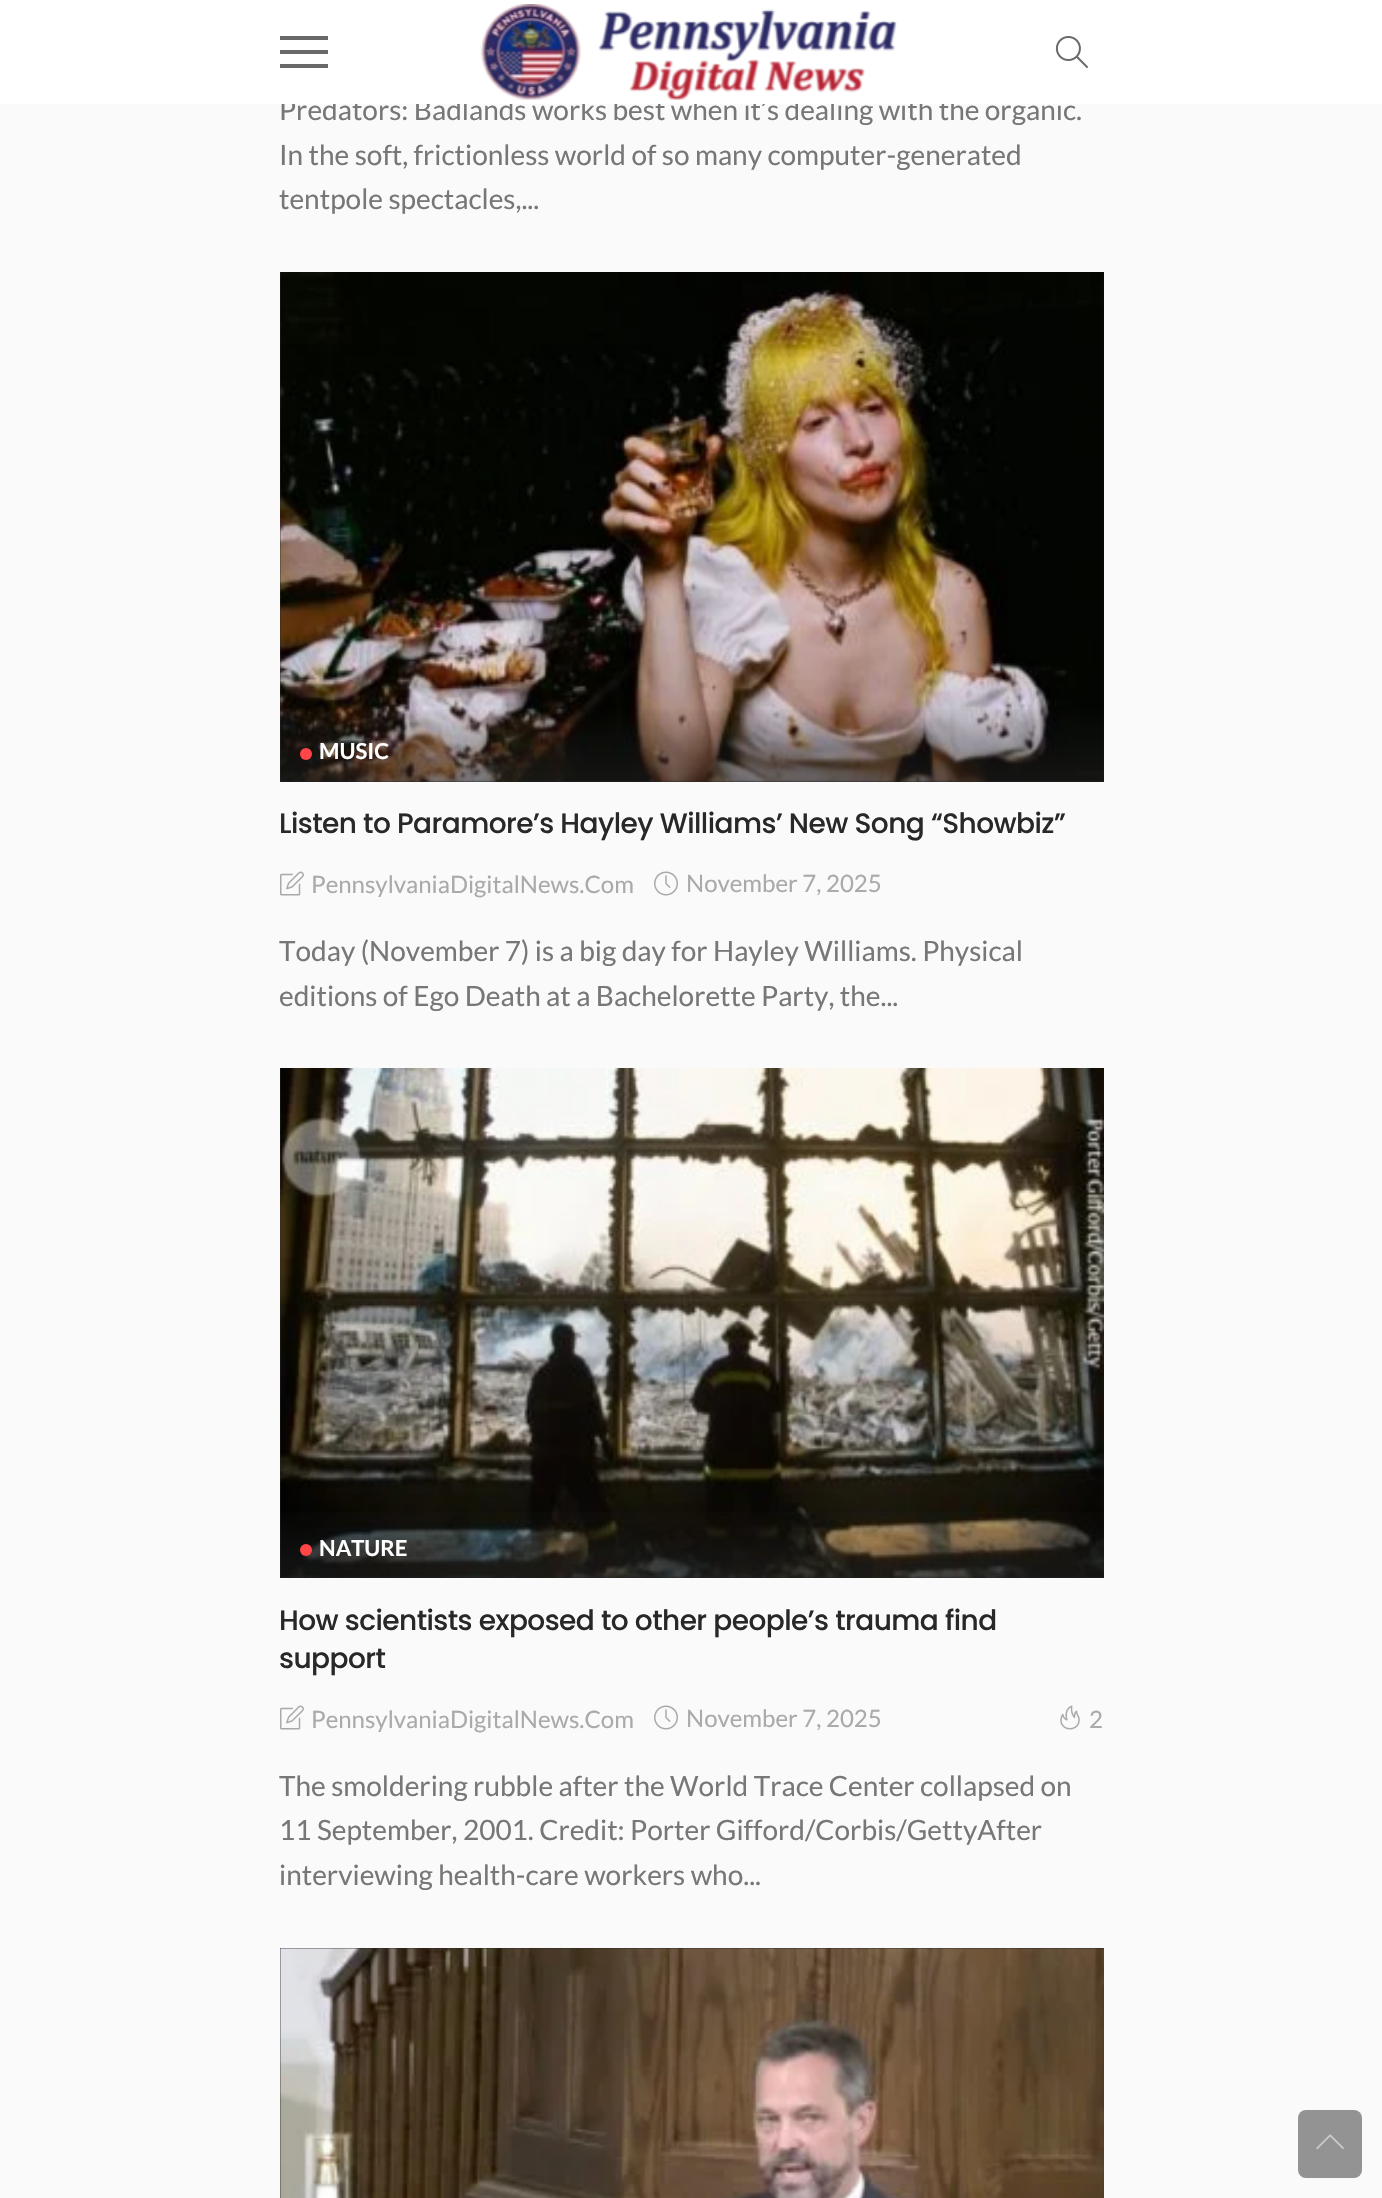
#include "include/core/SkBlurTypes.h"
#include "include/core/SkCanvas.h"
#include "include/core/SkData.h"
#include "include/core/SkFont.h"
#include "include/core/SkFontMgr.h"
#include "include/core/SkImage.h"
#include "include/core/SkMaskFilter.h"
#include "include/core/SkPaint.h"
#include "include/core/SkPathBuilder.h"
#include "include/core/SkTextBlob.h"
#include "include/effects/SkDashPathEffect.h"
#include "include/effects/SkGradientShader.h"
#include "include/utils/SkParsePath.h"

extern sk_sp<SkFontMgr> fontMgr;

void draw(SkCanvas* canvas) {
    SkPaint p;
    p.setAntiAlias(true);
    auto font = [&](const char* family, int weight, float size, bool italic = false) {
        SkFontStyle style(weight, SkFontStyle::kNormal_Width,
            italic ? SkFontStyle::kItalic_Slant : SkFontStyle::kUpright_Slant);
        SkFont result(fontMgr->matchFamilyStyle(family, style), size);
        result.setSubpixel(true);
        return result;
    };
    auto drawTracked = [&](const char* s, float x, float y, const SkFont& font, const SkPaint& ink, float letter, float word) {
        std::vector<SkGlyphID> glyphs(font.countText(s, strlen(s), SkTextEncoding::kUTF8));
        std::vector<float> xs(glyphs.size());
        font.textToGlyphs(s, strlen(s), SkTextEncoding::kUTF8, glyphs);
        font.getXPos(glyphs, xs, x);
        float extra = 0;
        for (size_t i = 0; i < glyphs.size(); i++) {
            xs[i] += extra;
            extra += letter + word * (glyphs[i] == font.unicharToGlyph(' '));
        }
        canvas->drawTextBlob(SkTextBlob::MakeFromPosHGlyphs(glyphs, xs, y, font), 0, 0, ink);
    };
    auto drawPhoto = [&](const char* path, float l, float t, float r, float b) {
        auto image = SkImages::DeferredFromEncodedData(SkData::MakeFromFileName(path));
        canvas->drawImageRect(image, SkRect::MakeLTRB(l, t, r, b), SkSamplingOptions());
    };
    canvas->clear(0xFFFAFAFA);
    auto font1 = font("Lato", 400, 28);
    p.setColor(0xFF777777);
    canvas->drawString("Predators: Badlands works best when it’s dealing with the organic.", 279, 120, font1, p);
    {
        const struct { float l, t, r, b; SkColor color; } items[] = {
            {0, 0, 1382, 104, 0xFFFFFFFF},
            {280, 50, 328, 54, 0xFF696969},
            {280, 36, 328, 40, 0xFF696969},
            {280, 64, 328, 68, 0xFF696969},
        };
        for (auto [l, t, r, b, color] : items) {
            p.setColor(color);
            canvas->drawRect(SkRect::MakeLTRB(l, t, r, b), p);
        }
    }
    drawPhoto("media/1.png", 480, 4, 897, 100);
    drawPhoto("media/2.png", 1055, 36, 1088, 68);
    p.setColor(0xFF777777);
    canvas->drawString("In the soft, frictionless world of so many computer-generated", 279, 165, font1, p);
    canvas->drawString("tentpole spectacles,...", 279, 209, font1, p);
    p.setColor(0xFF282828);
    canvas->drawRect(SkRect::MakeLTRB(280, 272, 1104, 782), p);
    drawPhoto("media/3.png", 280, 272, 1104, 782);
    {
        const SkColor colors[] = {0x00222222, 0x2B222222, 0x8F222222};
        const float stops[] = {0, 0.3f, 1};
        const SkPoint ends[] = {{692, 706}, {692, 784}};
        p.setShader(SkGradientShader::MakeLinear(ends, colors, stops, 3, SkTileMode::kClamp));
        p.setAlpha(255);
    }
    canvas->drawRect(SkRect::MakeLTRB(280, 709, 1104, 782), p);
    p.setShader(nullptr);
    p.setColor(0xFFFF4545);
    canvas->drawCircle(306, 754, 6, p);
    auto font2 = font("Lato", 700, 22);
    p.setColor(0xFFFFFFFF);
    canvas->drawString("MUSIC", 319, 759, font2, p);
    auto font3 = font("Poppins", 500, 28);
    p.setColor(0xFF282828);
    drawTracked("Listen to Paramore’s Hayley Williams’ New Song “Showbiz”", 279, 833, font3, p, -0.55f, 0);
    drawPhoto("media/4.png", 280, 871, 304, 896);
    auto font4 = font("Lato", 400, 24);
    p.setColor(0xFFAAAAAA);
    canvas->drawString("PennsylvaniaDigitalNews.Com", 311, 893, font4, p);
    drawPhoto("media/5.png", 654, 871, 678, 896);
    canvas->drawString("November 7, 2025", 686, 892, font4, p);
    p.setColor(0xFF777777);
    canvas->drawString("Today (November 7) is a big day for Hayley Williams. Physical", 279, 961, font1, p);
    canvas->drawString("editions of Ego Death at a Bachelorette Party, the...", 279, 1006, font1, p);
    p.setColor(0xFF282828);
    canvas->drawRect(SkRect::MakeLTRB(280, 1068, 1104, 1578), p);
    drawPhoto("media/6.png", 280, 1068, 1104, 1578);
    {
        const SkColor colors[] = {0x00222222, 0x2B222222, 0x8F222222};
        const float stops[] = {0, 0.3f, 1};
        const SkPoint ends[] = {{692, 1502}, {692, 1580}};
        p.setShader(SkGradientShader::MakeLinear(ends, colors, stops, 3, SkTileMode::kClamp));
        p.setAlpha(255);
    }
    canvas->drawRect(SkRect::MakeLTRB(280, 1512, 1104, 1578), p);
    p.setShader(nullptr);
    p.setColor(0xFFFF4545);
    canvas->drawCircle(306, 1550, 6, p);
    p.setColor(0xFFFFFFFF);
    canvas->drawString("NATURE", 319, 1556, font2, p);
    p.setColor(0xFF282828);
    drawTracked("How scientists exposed to other people’s trauma find", 279, 1630, font3, p, -0.55f, 0);
    drawTracked("support", 279, 1668, font3, p, -0.55f, 0);
    drawPhoto("media/4.png", 280, 1705, 304, 1730);
    p.setColor(0xFFAAAAAA);
    canvas->drawString("PennsylvaniaDigitalNews.Com", 311, 1728, font4, p);
    drawPhoto("media/5.png", 654, 1705, 678, 1730);
    canvas->drawString("November 7, 2025", 686, 1727, font4, p);
    drawPhoto("media/7.png", 1060, 1705, 1080, 1730);
    canvas->drawString("2", 1089, 1728, font4, p);
    p.setColor(0xFF777777);
    {
        const struct { const char* s; float x, y; } items[] = {
            {"The smoldering rubble after the World Trace Center collapsed on", 279, 1796},
            {"11 September, 2001. Credit: Porter Gifford/Corbis/GettyAfter", 279, 1840},
            {"interviewing health-care workers who...", 279, 1885},
        };
        for (auto [s, x, y] : items) {
            canvas->drawString(s, x, y, font1, p);
        }
    }
    p.setColor(0xFF282828);
    canvas->drawRect(SkRect::MakeLTRB(280, 1948, 1104, 2198), p);
    drawPhoto("media/8.png", 280, 1948, 1104, 2198);
    p.setColor(0xFF939393);
    canvas->drawRoundRect(SkRect::MakeLTRB(1298, 2110, 1362, 2178), 8, 8, p);
    drawPhoto("media/9.png", 1316, 2134, 1344, 2150);
}
